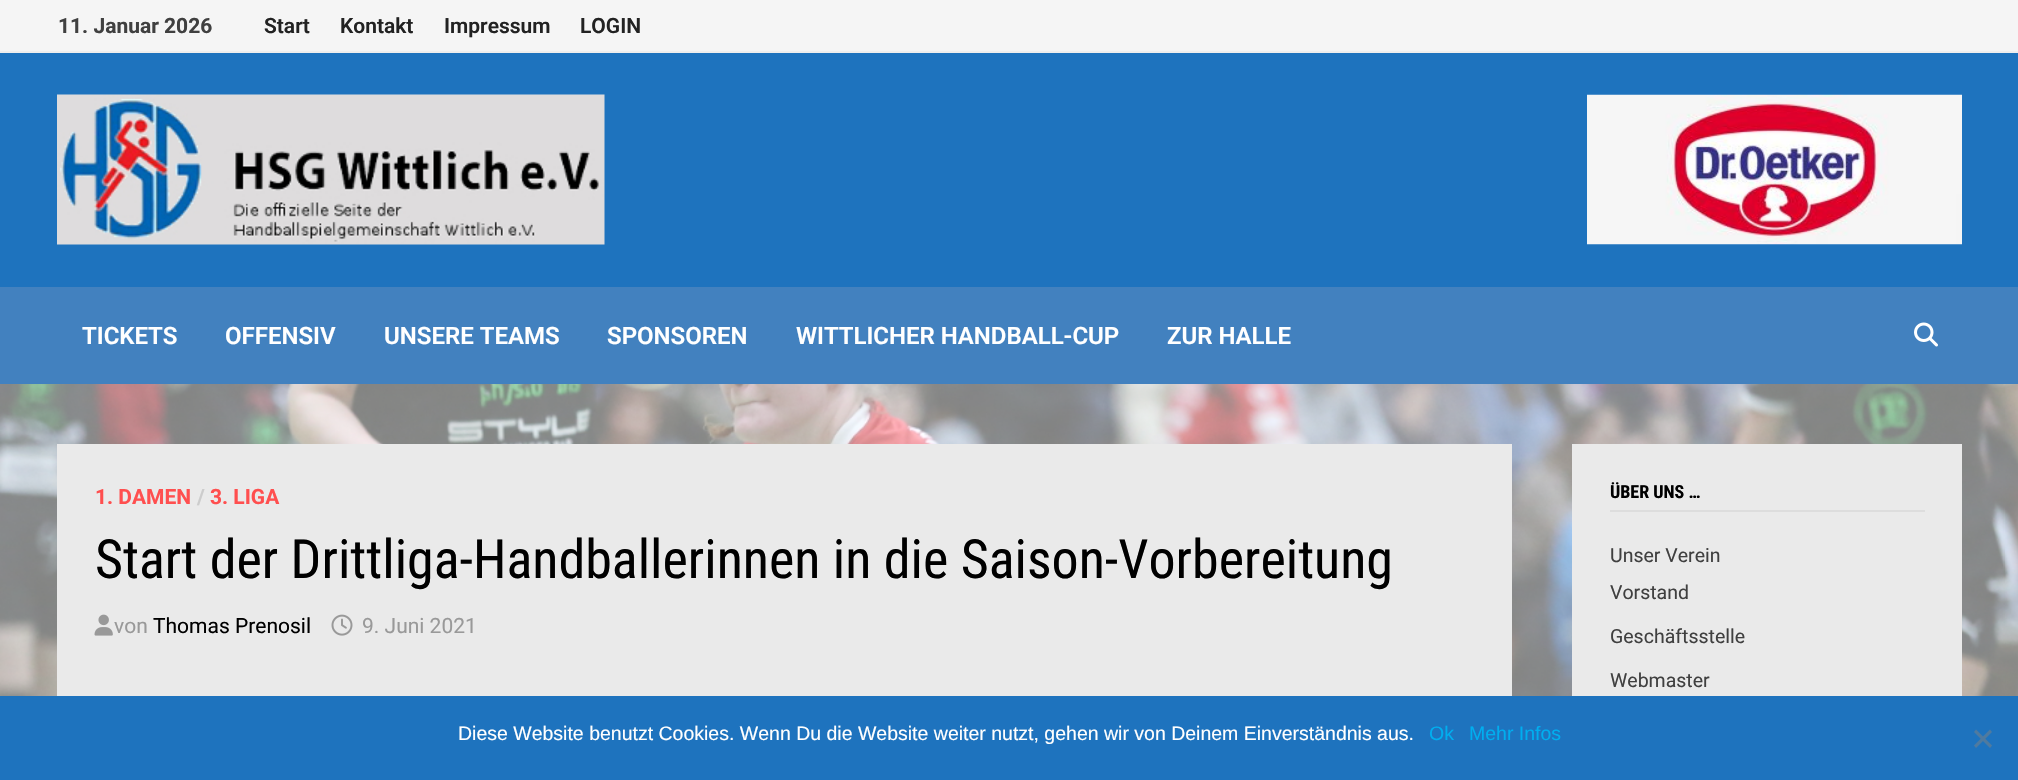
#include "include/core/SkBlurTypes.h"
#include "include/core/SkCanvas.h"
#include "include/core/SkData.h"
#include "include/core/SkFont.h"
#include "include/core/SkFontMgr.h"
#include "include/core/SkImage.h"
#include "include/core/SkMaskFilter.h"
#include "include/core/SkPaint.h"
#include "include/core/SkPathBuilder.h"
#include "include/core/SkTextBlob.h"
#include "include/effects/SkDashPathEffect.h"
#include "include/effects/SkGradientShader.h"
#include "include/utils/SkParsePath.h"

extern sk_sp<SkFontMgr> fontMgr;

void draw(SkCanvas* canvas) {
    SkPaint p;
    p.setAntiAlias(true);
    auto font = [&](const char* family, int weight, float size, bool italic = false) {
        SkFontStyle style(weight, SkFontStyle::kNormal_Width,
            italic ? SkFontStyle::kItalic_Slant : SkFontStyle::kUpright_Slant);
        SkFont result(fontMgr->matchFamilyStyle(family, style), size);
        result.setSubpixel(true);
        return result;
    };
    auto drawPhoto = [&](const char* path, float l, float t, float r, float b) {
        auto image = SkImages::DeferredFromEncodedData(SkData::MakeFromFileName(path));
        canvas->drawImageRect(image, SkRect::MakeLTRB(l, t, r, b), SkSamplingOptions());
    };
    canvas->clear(0xFFFFFFFF);
    drawPhoto("media/1.png", 0, 384, 2018, 696);
    p.setColor(0xFFF5F5F5);
    canvas->drawRect(SkRect::MakeLTRB(0, 0, 2018, 51), p);
    p.setColor(0xFFEEEEEE);
    canvas->drawRect(SkRect::MakeLTRB(0, 51, 2018, 53), p);
    auto font1 = font("Roboto", 700, 21);
    p.setColor(0xFF404040);
    canvas->drawString("11. Januar 2026", 58, 33, font1, p);
    auto font2 = font("Roboto", 600, 21);
    p.setColor(0xFF222222);
    {
        const struct { const char* s; float x, y; } items[] = {
            {"Start", 264, 33},
            {"Kontakt", 340, 33},
            {"Impressum", 444, 33},
            {"LOGIN", 580, 33},
        };
        for (auto [s, x, y] : items) {
            canvas->drawString(s, x, y, font2, p);
        }
    }
    p.setColor(0xFF1E73BE);
    canvas->drawRect(SkRect::MakeLTRB(0, 53, 2018, 287), p);
    drawPhoto("media/2.png", 57, 94, 605, 245);
    drawPhoto("media/3.png", 1587, 94, 1962, 245);
    p.setColor(0xFF4281BF);
    canvas->drawRect(SkRect::MakeLTRB(0, 287, 2018, 384), p);
    auto font3 = font("Roboto", 600, 24);
    p.setColor(0xFFFFFFFF);
    {
        const struct { const char* s; float x, y; } items[] = {
            {"TICKETS", 82, 344},
            {"OFFENSIV", 225, 344},
            {"UNSERE TEAMS", 384, 344},
            {"SPONSOREN", 607, 344},
            {"WITTLICHER HANDBALL-CUP", 796, 344},
            {"ZUR HALLE", 1167, 344},
        };
        for (auto [s, x, y] : items) {
            canvas->drawString(s, x, y, font3, p);
        }
    }
    drawPhoto("media/4.png", 1914, 322, 1938, 347);
    p.setColor(0x80FFFFFF);
    canvas->drawRect(SkRect::MakeLTRB(0, 384, 2018, 696), p);
    p.setColor(0xFFEAEAEA);
    canvas->drawRect(SkRect::MakeLTRB(57, 444, 1512, 696), p);
    p.setColor(0xFFFF4F4F);
    canvas->drawString("1. DAMEN", 95, 504, font1, p);
    p.setColor(0xFFCCCCCC);
    canvas->drawString("/", 197, 504, font1, p);
    p.setColor(0xFFFF4F4F);
    canvas->drawString("3. LIGA", 210, 504, font1, p);
    auto font4 = font("Roboto Condensed", 400, 54);
    p.setColor(0xFF000000);
    canvas->drawString("Start der Drittliga-Handballerinnen in die Saison-Vorbereitung", 95, 578, font4, p);
    drawPhoto("media/5.png", 94, 614, 113, 636);
    auto font5 = font("Roboto", 400, 21);
    p.setColor(0xFF999999);
    canvas->drawString("von", 114, 633, font5, p);
    p.setColor(0xFF000000);
    canvas->drawString("Thomas Prenosil", 153, 633, font5, p);
    drawPhoto("media/6.png", 331, 614, 353, 636);
    p.setColor(0xFF999999);
    canvas->drawString("9. Juni 2021", 362, 633, font5, p);
    p.setColor(0xFFEAEAEA);
    canvas->drawRect(SkRect::MakeLTRB(1572, 444, 1962, 696), p);
    p.setColor(0xFFDDDDDD);
    canvas->drawRect(SkRect::MakeLTRB(1610, 510, 1925, 512), p);
    auto font6 = font("Roboto Condensed", 700, 18);
    p.setColor(0xFF000000);
    canvas->drawString("ÜBER UNS …", 1610, 498, font6, p);
    auto font7 = font("Roboto", 400, 19.5f);
    p.setColor(0xFF404040);
    {
        const struct { const char* s; float x, y; } items[] = {
            {"Unser Verein", 1610, 562},
            {"Vorstand", 1610, 599},
            {"Geschäftsstelle", 1610, 643},
            {"Webmaster", 1610, 687},
        };
        for (auto [s, x, y] : items) {
            canvas->drawString(s, x, y, font7, p);
        }
    }
    p.setColor(0xFF1E73BE);
    canvas->drawRect(SkRect::MakeLTRB(0, 696, 2018, 780), p);
    auto font8 = font("Liberation Sans", 400, 19.5f);
    p.setColor(0xFFFFFFFF);
    canvas->drawString("Diese Website benutzt Cookies. Wenn Du die Website weiter nutzt, gehen wir von Deinem Einverständnis aus.", 458, 740, font8, p);
    p.setColor(0xFF00AEEF);
    canvas->drawString("Ok", 1429, 740, font8, p);
    canvas->drawString("Mehr Infos", 1469, 740, font8, p);
    p.setColor(0xFF4F7A9F);
    canvas->drawPath(SkPathBuilder().moveTo(1990, 729.5f).lineTo(1992, 732).lineTo(1976, 748).lineTo(1974, 745.5f).close().detach(), p);
    canvas->drawPath(SkPathBuilder().moveTo(1974, 732).lineTo(1976, 729.5f).lineTo(1992, 745.5f).lineTo(1990, 748).close().detach(), p);
}
